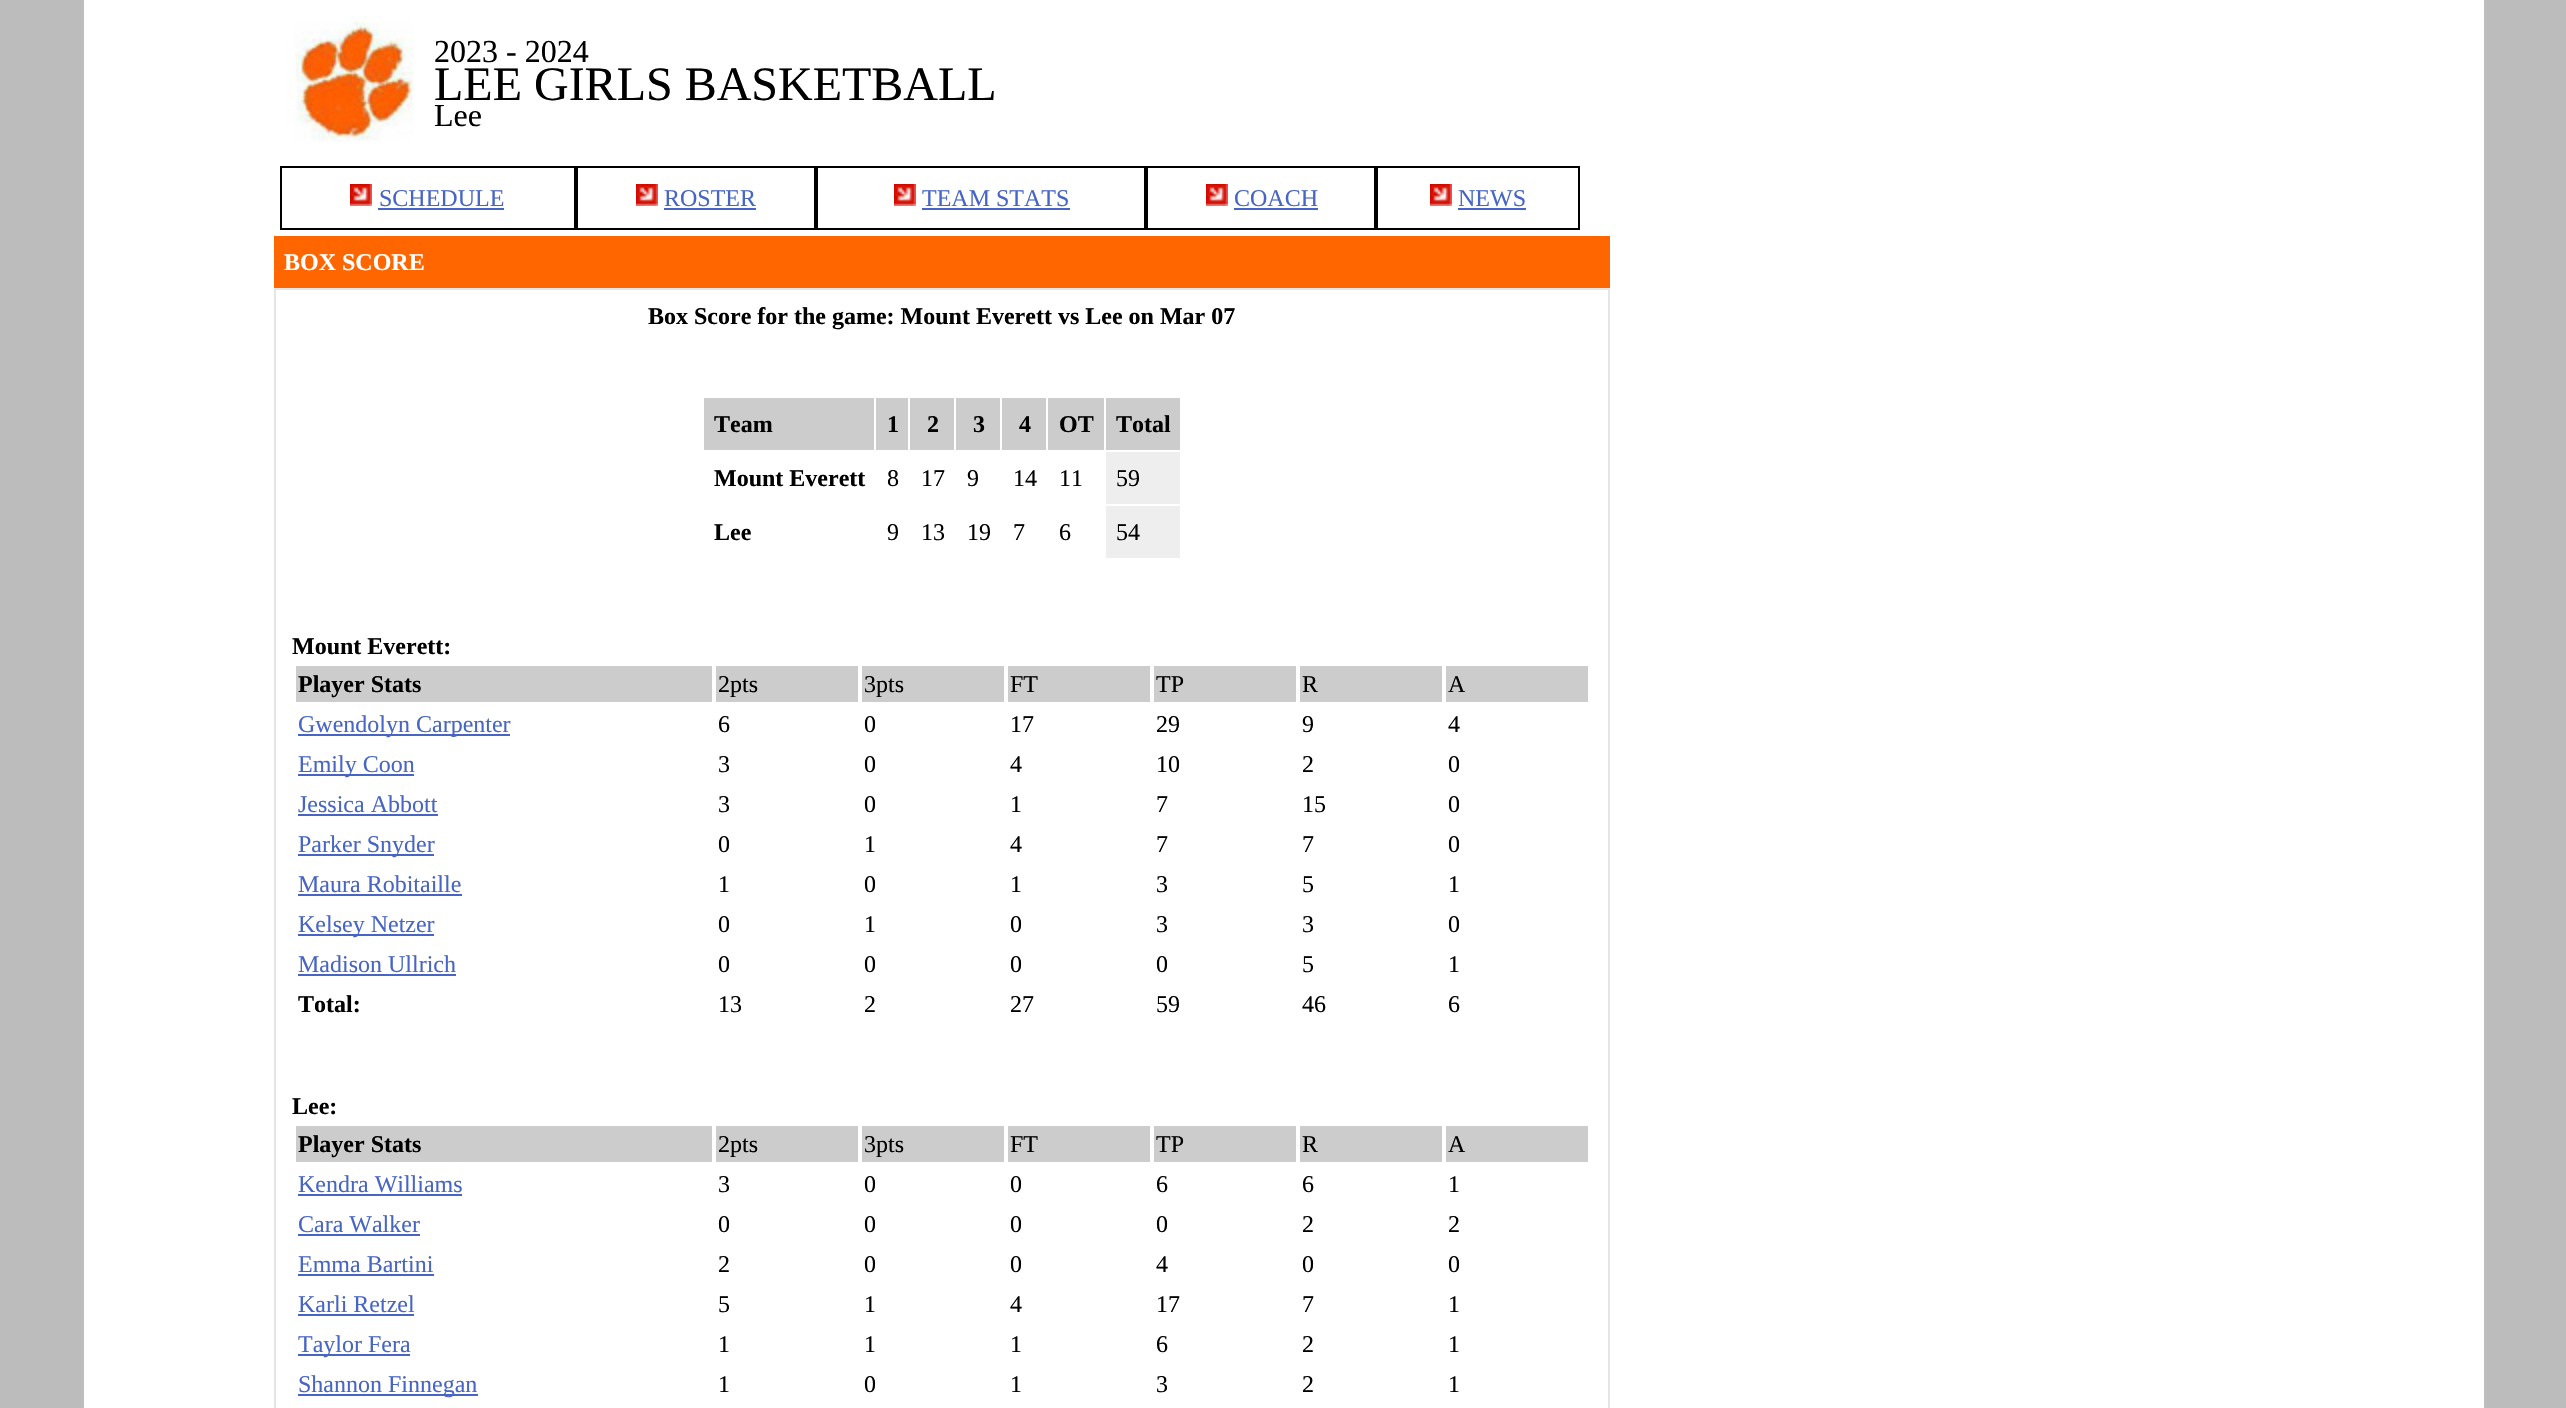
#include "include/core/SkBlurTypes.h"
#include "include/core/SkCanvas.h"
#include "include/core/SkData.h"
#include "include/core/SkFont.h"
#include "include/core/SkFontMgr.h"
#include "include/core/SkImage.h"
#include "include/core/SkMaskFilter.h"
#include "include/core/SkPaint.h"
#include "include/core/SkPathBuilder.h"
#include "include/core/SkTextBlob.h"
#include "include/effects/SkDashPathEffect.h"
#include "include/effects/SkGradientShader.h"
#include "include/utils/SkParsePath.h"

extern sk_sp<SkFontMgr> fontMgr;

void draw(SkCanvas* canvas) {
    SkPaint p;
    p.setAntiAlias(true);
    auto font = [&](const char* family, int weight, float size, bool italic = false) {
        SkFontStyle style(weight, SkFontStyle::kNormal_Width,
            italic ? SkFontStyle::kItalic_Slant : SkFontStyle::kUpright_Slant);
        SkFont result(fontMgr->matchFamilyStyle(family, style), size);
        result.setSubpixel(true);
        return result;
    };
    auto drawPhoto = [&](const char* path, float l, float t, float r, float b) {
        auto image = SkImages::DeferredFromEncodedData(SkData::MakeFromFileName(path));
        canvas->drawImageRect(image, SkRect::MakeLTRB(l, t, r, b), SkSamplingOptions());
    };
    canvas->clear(0xFFBCBCBC);
    p.setColor(0xFFFFFFFF);
    canvas->drawRect(SkRect::MakeLTRB(84, 0, 2484, 1408), p);
    drawPhoto("media/1.png", 286, 16, 414, 142);
    auto font1 = font("Liberation Serif", 400, 32);
    p.setColor(0xFF000000);
    canvas->drawString("2023 - 2024", 434, 62, font1, p);
    auto font2 = font("Liberation Serif", 400, 48);
    canvas->drawString("LEE GIRLS BASKETBALL", 434, 100, font2, p);
    canvas->drawString("Lee", 434, 126, font1, p);
    p.setStyle(SkPaint::kStroke_Style);
    p.setStrokeWidth(2);
    canvas->drawRect(SkRect::MakeLTRB(281, 167, 575, 229), p);
    drawPhoto("media/2.png", 350, 184, 372, 206);
    auto font3 = font("Liberation Serif", 400, 24);
    p.setStyle(SkPaint::kFill_Style);
    p.setColor(0xFF4765C4);
    canvas->drawString("SCHEDULE", 379, 206, font3, p);
    canvas->drawRect(SkRect::MakeLTRB(378, 208, 504, 210), p);
    p.setStyle(SkPaint::kStroke_Style);
    p.setColor(0xFF000000);
    canvas->drawRect(SkRect::MakeLTRB(577, 167, 815, 229), p);
    drawPhoto("media/2.png", 636, 184, 658, 206);
    p.setStyle(SkPaint::kFill_Style);
    p.setColor(0xFF4765C4);
    canvas->drawString("ROSTER", 664, 206, font3, p);
    canvas->drawRect(SkRect::MakeLTRB(664, 208, 756, 210), p);
    p.setStyle(SkPaint::kStroke_Style);
    p.setColor(0xFF000000);
    canvas->drawRect(SkRect::MakeLTRB(817, 167, 1145, 229), p);
    drawPhoto("media/2.png", 894, 184, 916, 206);
    p.setStyle(SkPaint::kFill_Style);
    p.setColor(0xFF4765C4);
    canvas->drawString("TEAM STATS", 922, 206, font3, p);
    canvas->drawRect(SkRect::MakeLTRB(922, 208, 1070, 210), p);
    p.setStyle(SkPaint::kStroke_Style);
    p.setColor(0xFF000000);
    canvas->drawRect(SkRect::MakeLTRB(1147, 167, 1375, 229), p);
    drawPhoto("media/2.png", 1206, 184, 1228, 206);
    p.setStyle(SkPaint::kFill_Style);
    p.setColor(0xFF4765C4);
    canvas->drawString("COACH", 1234, 206, font3, p);
    canvas->drawRect(SkRect::MakeLTRB(1234, 208, 1318, 210), p);
    p.setStyle(SkPaint::kStroke_Style);
    p.setColor(0xFF000000);
    canvas->drawRect(SkRect::MakeLTRB(1377, 167, 1579, 229), p);
    drawPhoto("media/2.png", 1430, 184, 1452, 206);
    p.setStyle(SkPaint::kFill_Style);
    p.setColor(0xFF4765C4);
    canvas->drawString("NEWS", 1458, 206, font3, p);
    canvas->drawRect(SkRect::MakeLTRB(1458, 208, 1526, 210), p);
    p.setColor(0xFFFF6600);
    canvas->drawRect(SkRect::MakeLTRB(274, 236, 1610, 288), p);
    auto font4 = font("Liberation Serif", 700, 24);
    p.setColor(0xFFFFFFFF);
    canvas->drawString("BOX SCORE", 284, 270, font4, p);
    p.setStyle(SkPaint::kStroke_Style);
    p.setColor(0xFFE5E5E5);
    canvas->drawRect(SkRect::MakeLTRB(275, 289, 1609, 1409), p);
    p.setStyle(SkPaint::kFill_Style);
    p.setColor(0xFF000000);
    canvas->drawString("Box Score for the game: Mount Everett vs Lee on Mar 07", 648, 324, font4, p);
    p.setColor(0xFFCCCCCC);
    canvas->drawRect(SkRect::MakeLTRB(704, 398, 874, 450), p);
    p.setColor(0xFF000000);
    canvas->drawString("Team", 714, 432, font4, p);
    p.setColor(0xFFCCCCCC);
    canvas->drawRect(SkRect::MakeLTRB(876, 398, 908, 450), p);
    p.setColor(0xFF000000);
    canvas->drawString("1", 887, 432, font4, p);
    p.setColor(0xFFCCCCCC);
    canvas->drawRect(SkRect::MakeLTRB(910, 398, 954, 450), p);
    p.setColor(0xFF000000);
    canvas->drawString("2", 927, 432, font4, p);
    p.setColor(0xFFCCCCCC);
    canvas->drawRect(SkRect::MakeLTRB(956, 398, 1000, 450), p);
    p.setColor(0xFF000000);
    canvas->drawString("3", 973, 432, font4, p);
    p.setColor(0xFFCCCCCC);
    canvas->drawRect(SkRect::MakeLTRB(1002, 398, 1046, 450), p);
    p.setColor(0xFF000000);
    canvas->drawString("4", 1019, 432, font4, p);
    p.setColor(0xFFCCCCCC);
    canvas->drawRect(SkRect::MakeLTRB(1048, 398, 1104, 450), p);
    p.setColor(0xFF000000);
    canvas->drawString("OT", 1059, 432, font4, p);
    p.setColor(0xFFCCCCCC);
    canvas->drawRect(SkRect::MakeLTRB(1106, 398, 1180, 450), p);
    p.setColor(0xFF000000);
    canvas->drawString("Total", 1116, 432, font4, p);
    canvas->drawString("Mount Everett", 714, 486, font4, p);
    {
        const struct { const char* s; float x, y; } items[] = {
            {"8", 887, 486},
            {"17", 921, 486},
            {"9", 967, 486},
            {"14", 1013, 486},
            {"11", 1059, 486},
        };
        for (auto [s, x, y] : items) {
            canvas->drawString(s, x, y, font3, p);
        }
    }
    p.setColor(0xFFEEEEEE);
    canvas->drawRect(SkRect::MakeLTRB(1106, 452, 1180, 504), p);
    p.setColor(0xFF000000);
    canvas->drawString("59", 1116, 486, font3, p);
    canvas->drawString("Lee", 714, 540, font4, p);
    {
        const struct { const char* s; float x, y; } items[] = {
            {"9", 887, 540},
            {"13", 921, 540},
            {"19", 967, 540},
            {"7", 1013, 540},
            {"6", 1059, 540},
        };
        for (auto [s, x, y] : items) {
            canvas->drawString(s, x, y, font3, p);
        }
    }
    p.setColor(0xFFEEEEEE);
    canvas->drawRect(SkRect::MakeLTRB(1106, 506, 1180, 558), p);
    p.setColor(0xFF000000);
    canvas->drawString("54", 1116, 540, font3, p);
    canvas->drawString("Mount Everett:", 292, 654, font4, p);
    p.setColor(0xFFCCCCCC);
    canvas->drawRect(SkRect::MakeLTRB(296, 666, 712, 702), p);
    p.setColor(0xFF000000);
    canvas->drawString("Player Stats", 298, 692, font4, p);
    p.setColor(0xFFCCCCCC);
    canvas->drawRect(SkRect::MakeLTRB(716, 666, 858, 702), p);
    p.setColor(0xFF000000);
    canvas->drawString("2pts", 718, 692, font3, p);
    p.setColor(0xFFCCCCCC);
    canvas->drawRect(SkRect::MakeLTRB(862, 666, 1004, 702), p);
    p.setColor(0xFF000000);
    canvas->drawString("3pts", 864, 692, font3, p);
    p.setColor(0xFFCCCCCC);
    canvas->drawRect(SkRect::MakeLTRB(1008, 666, 1150, 702), p);
    p.setColor(0xFF000000);
    canvas->drawString("FT", 1010, 692, font3, p);
    p.setColor(0xFFCCCCCC);
    canvas->drawRect(SkRect::MakeLTRB(1154, 666, 1296, 702), p);
    p.setColor(0xFF000000);
    canvas->drawString("TP", 1156, 692, font3, p);
    p.setColor(0xFFCCCCCC);
    canvas->drawRect(SkRect::MakeLTRB(1300, 666, 1442, 702), p);
    p.setColor(0xFF000000);
    canvas->drawString("R", 1302, 692, font3, p);
    p.setColor(0xFFCCCCCC);
    canvas->drawRect(SkRect::MakeLTRB(1446, 666, 1588, 702), p);
    p.setColor(0xFF000000);
    canvas->drawString("A", 1448, 692, font3, p);
    p.setColor(0xFF4765C4);
    canvas->drawRect(SkRect::MakeLTRB(298, 734, 510, 736), p);
    canvas->drawString("Gwendolyn Carpenter", 298, 732, font3, p);
    p.setColor(0xFF000000);
    {
        const struct { const char* s; float x, y; } items[] = {
            {"6", 718, 732},
            {"0", 864, 732},
            {"17", 1010, 732},
            {"29", 1156, 732},
            {"9", 1302, 732},
            {"4", 1448, 732},
        };
        for (auto [s, x, y] : items) {
            canvas->drawString(s, x, y, font3, p);
        }
    }
    p.setColor(0xFF4765C4);
    canvas->drawRect(SkRect::MakeLTRB(298, 774, 414, 776), p);
    canvas->drawString("Emily Coon", 298, 772, font3, p);
    p.setColor(0xFF000000);
    {
        const struct { const char* s; float x, y; } items[] = {
            {"3", 718, 772},
            {"0", 864, 772},
            {"4", 1010, 772},
            {"10", 1156, 772},
            {"2", 1302, 772},
            {"0", 1448, 772},
        };
        for (auto [s, x, y] : items) {
            canvas->drawString(s, x, y, font3, p);
        }
    }
    p.setColor(0xFF4765C4);
    canvas->drawString("Jessica Abbott", 298, 812, font3, p);
    canvas->drawRect(SkRect::MakeLTRB(298, 814, 438, 816), p);
    p.setColor(0xFF000000);
    {
        const struct { const char* s; float x, y; } items[] = {
            {"3", 718, 812},
            {"0", 864, 812},
            {"1", 1010, 812},
            {"7", 1156, 812},
            {"15", 1302, 812},
            {"0", 1448, 812},
        };
        for (auto [s, x, y] : items) {
            canvas->drawString(s, x, y, font3, p);
        }
    }
    p.setColor(0xFF4765C4);
    canvas->drawRect(SkRect::MakeLTRB(298, 854, 434, 856), p);
    canvas->drawString("Parker Snyder", 298, 852, font3, p);
    p.setColor(0xFF000000);
    {
        const struct { const char* s; float x, y; } items[] = {
            {"0", 718, 852},
            {"1", 864, 852},
            {"4", 1010, 852},
            {"7", 1156, 852},
            {"7", 1302, 852},
            {"0", 1448, 852},
        };
        for (auto [s, x, y] : items) {
            canvas->drawString(s, x, y, font3, p);
        }
    }
    p.setColor(0xFF4765C4);
    canvas->drawString("Maura Robitaille", 298, 892, font3, p);
    canvas->drawRect(SkRect::MakeLTRB(298, 894, 462, 896), p);
    p.setColor(0xFF000000);
    {
        const struct { const char* s; float x, y; } items[] = {
            {"1", 718, 892},
            {"0", 864, 892},
            {"1", 1010, 892},
            {"3", 1156, 892},
            {"5", 1302, 892},
            {"1", 1448, 892},
        };
        for (auto [s, x, y] : items) {
            canvas->drawString(s, x, y, font3, p);
        }
    }
    p.setColor(0xFF4765C4);
    canvas->drawRect(SkRect::MakeLTRB(298, 934, 434, 936), p);
    canvas->drawString("Kelsey Netzer", 298, 932, font3, p);
    p.setColor(0xFF000000);
    {
        const struct { const char* s; float x, y; } items[] = {
            {"0", 718, 932},
            {"1", 864, 932},
            {"0", 1010, 932},
            {"3", 1156, 932},
            {"3", 1302, 932},
            {"0", 1448, 932},
        };
        for (auto [s, x, y] : items) {
            canvas->drawString(s, x, y, font3, p);
        }
    }
    p.setColor(0xFF4765C4);
    canvas->drawString("Madison Ullrich", 298, 972, font3, p);
    canvas->drawRect(SkRect::MakeLTRB(298, 974, 456, 976), p);
    p.setColor(0xFF000000);
    {
        const struct { const char* s; float x, y; } items[] = {
            {"0", 718, 972},
            {"0", 864, 972},
            {"0", 1010, 972},
            {"0", 1156, 972},
            {"5", 1302, 972},
            {"1", 1448, 972},
        };
        for (auto [s, x, y] : items) {
            canvas->drawString(s, x, y, font3, p);
        }
    }
    canvas->drawString("Total:", 298, 1012, font4, p);
    {
        const struct { const char* s; float x, y; } items[] = {
            {"13", 718, 1012},
            {"2", 864, 1012},
            {"27", 1010, 1012},
            {"59", 1156, 1012},
            {"46", 1302, 1012},
            {"6", 1448, 1012},
        };
        for (auto [s, x, y] : items) {
            canvas->drawString(s, x, y, font3, p);
        }
    }
    canvas->drawString("Lee:", 292, 1114, font4, p);
    p.setColor(0xFFCCCCCC);
    canvas->drawRect(SkRect::MakeLTRB(296, 1126, 712, 1162), p);
    p.setColor(0xFF000000);
    canvas->drawString("Player Stats", 298, 1152, font4, p);
    p.setColor(0xFFCCCCCC);
    canvas->drawRect(SkRect::MakeLTRB(716, 1126, 858, 1162), p);
    p.setColor(0xFF000000);
    canvas->drawString("2pts", 718, 1152, font3, p);
    p.setColor(0xFFCCCCCC);
    canvas->drawRect(SkRect::MakeLTRB(862, 1126, 1004, 1162), p);
    p.setColor(0xFF000000);
    canvas->drawString("3pts", 864, 1152, font3, p);
    p.setColor(0xFFCCCCCC);
    canvas->drawRect(SkRect::MakeLTRB(1008, 1126, 1150, 1162), p);
    p.setColor(0xFF000000);
    canvas->drawString("FT", 1010, 1152, font3, p);
    p.setColor(0xFFCCCCCC);
    canvas->drawRect(SkRect::MakeLTRB(1154, 1126, 1296, 1162), p);
    p.setColor(0xFF000000);
    canvas->drawString("TP", 1156, 1152, font3, p);
    p.setColor(0xFFCCCCCC);
    canvas->drawRect(SkRect::MakeLTRB(1300, 1126, 1442, 1162), p);
    p.setColor(0xFF000000);
    canvas->drawString("R", 1302, 1152, font3, p);
    p.setColor(0xFFCCCCCC);
    canvas->drawRect(SkRect::MakeLTRB(1446, 1126, 1588, 1162), p);
    p.setColor(0xFF000000);
    canvas->drawString("A", 1448, 1152, font3, p);
    p.setColor(0xFF4765C4);
    canvas->drawString("Kendra Williams", 298, 1192, font3, p);
    canvas->drawRect(SkRect::MakeLTRB(298, 1194, 462, 1196), p);
    p.setColor(0xFF000000);
    {
        const struct { const char* s; float x, y; } items[] = {
            {"3", 718, 1192},
            {"0", 864, 1192},
            {"0", 1010, 1192},
            {"6", 1156, 1192},
            {"6", 1302, 1192},
            {"1", 1448, 1192},
        };
        for (auto [s, x, y] : items) {
            canvas->drawString(s, x, y, font3, p);
        }
    }
    p.setColor(0xFF4765C4);
    canvas->drawString("Cara Walker", 298, 1232, font3, p);
    canvas->drawRect(SkRect::MakeLTRB(298, 1234, 420, 1236), p);
    p.setColor(0xFF000000);
    {
        const struct { const char* s; float x, y; } items[] = {
            {"0", 718, 1232},
            {"0", 864, 1232},
            {"0", 1010, 1232},
            {"0", 1156, 1232},
            {"2", 1302, 1232},
            {"2", 1448, 1232},
        };
        for (auto [s, x, y] : items) {
            canvas->drawString(s, x, y, font3, p);
        }
    }
    p.setColor(0xFF4765C4);
    canvas->drawString("Emma Bartini", 298, 1272, font3, p);
    canvas->drawRect(SkRect::MakeLTRB(298, 1274, 434, 1276), p);
    p.setColor(0xFF000000);
    {
        const struct { const char* s; float x, y; } items[] = {
            {"2", 718, 1272},
            {"0", 864, 1272},
            {"0", 1010, 1272},
            {"4", 1156, 1272},
            {"0", 1302, 1272},
            {"0", 1448, 1272},
        };
        for (auto [s, x, y] : items) {
            canvas->drawString(s, x, y, font3, p);
        }
    }
    p.setColor(0xFF4765C4);
    canvas->drawString("Karli Retzel", 298, 1312, font3, p);
    canvas->drawRect(SkRect::MakeLTRB(298, 1314, 414, 1316), p);
    p.setColor(0xFF000000);
    {
        const struct { const char* s; float x, y; } items[] = {
            {"5", 718, 1312},
            {"1", 864, 1312},
            {"4", 1010, 1312},
            {"17", 1156, 1312},
            {"7", 1302, 1312},
            {"1", 1448, 1312},
        };
        for (auto [s, x, y] : items) {
            canvas->drawString(s, x, y, font3, p);
        }
    }
    p.setColor(0xFF4765C4);
    canvas->drawRect(SkRect::MakeLTRB(298, 1354, 410, 1356), p);
    canvas->drawString("Taylor Fera", 298, 1352, font3, p);
    p.setColor(0xFF000000);
    {
        const struct { const char* s; float x, y; } items[] = {
            {"1", 718, 1352},
            {"1", 864, 1352},
            {"1", 1010, 1352},
            {"6", 1156, 1352},
            {"2", 1302, 1352},
            {"1", 1448, 1352},
        };
        for (auto [s, x, y] : items) {
            canvas->drawString(s, x, y, font3, p);
        }
    }
    p.setColor(0xFF4765C4);
    canvas->drawRect(SkRect::MakeLTRB(298, 1394, 478, 1396), p);
    canvas->drawString("Shannon Finnegan", 298, 1392, font3, p);
    p.setColor(0xFF000000);
    {
        const struct { const char* s; float x, y; } items[] = {
            {"1", 718, 1392},
            {"0", 864, 1392},
            {"1", 1010, 1392},
            {"3", 1156, 1392},
            {"2", 1302, 1392},
            {"1", 1448, 1392},
        };
        for (auto [s, x, y] : items) {
            canvas->drawString(s, x, y, font3, p);
        }
    }
}
